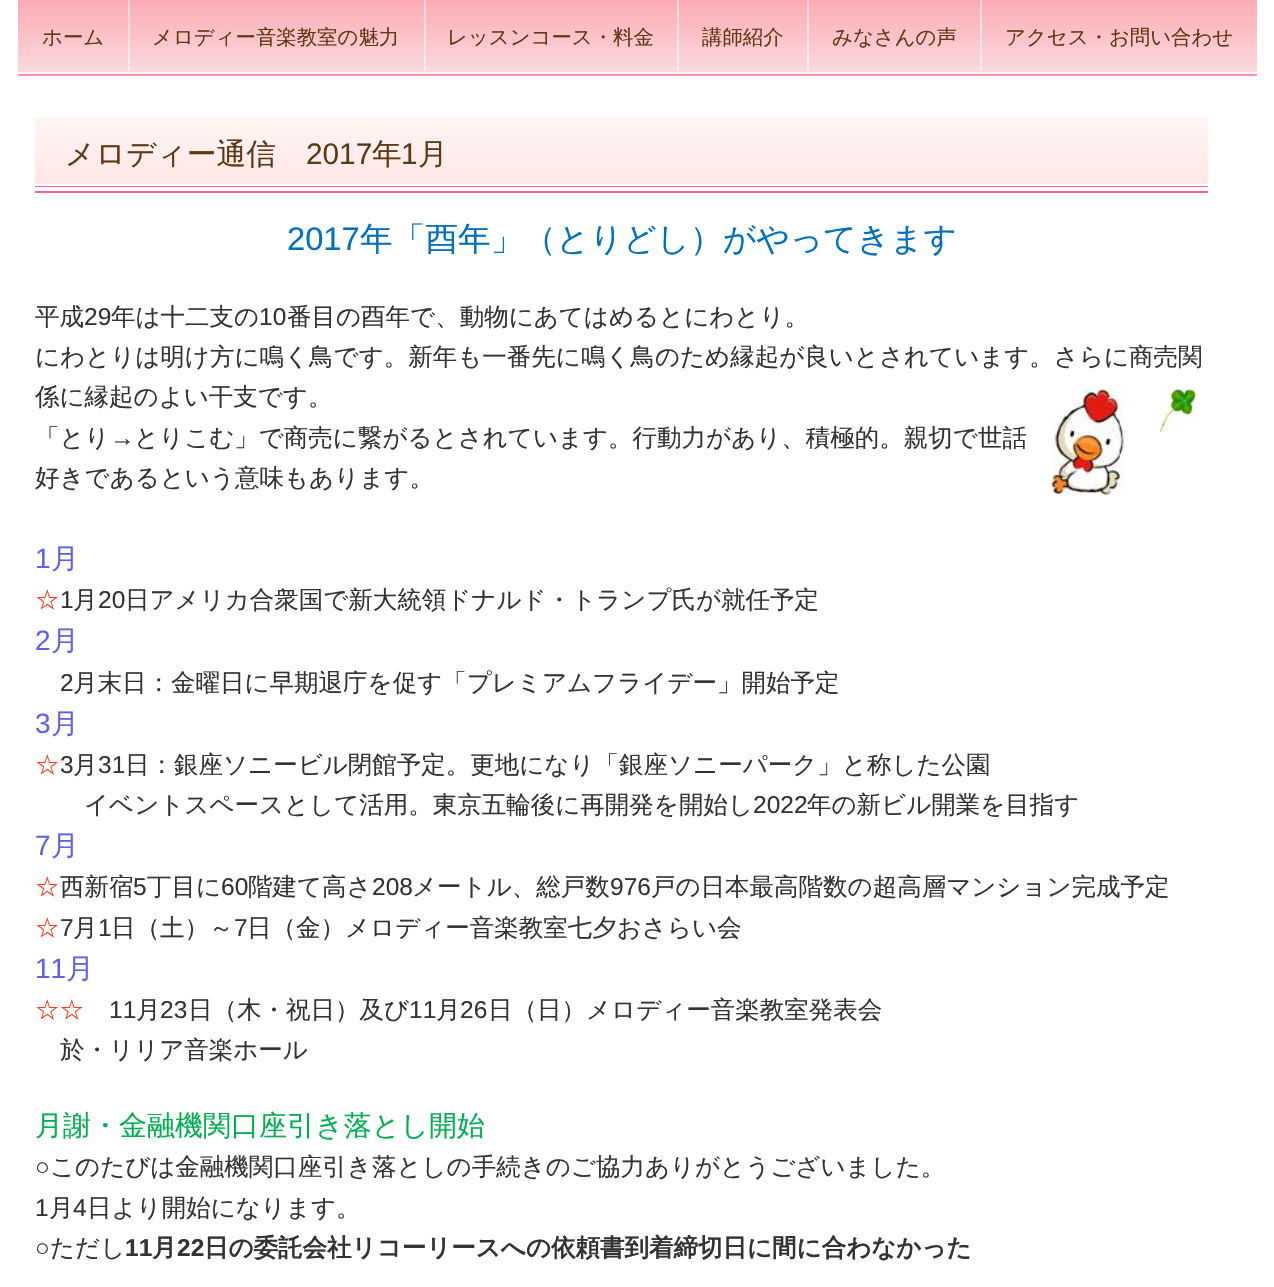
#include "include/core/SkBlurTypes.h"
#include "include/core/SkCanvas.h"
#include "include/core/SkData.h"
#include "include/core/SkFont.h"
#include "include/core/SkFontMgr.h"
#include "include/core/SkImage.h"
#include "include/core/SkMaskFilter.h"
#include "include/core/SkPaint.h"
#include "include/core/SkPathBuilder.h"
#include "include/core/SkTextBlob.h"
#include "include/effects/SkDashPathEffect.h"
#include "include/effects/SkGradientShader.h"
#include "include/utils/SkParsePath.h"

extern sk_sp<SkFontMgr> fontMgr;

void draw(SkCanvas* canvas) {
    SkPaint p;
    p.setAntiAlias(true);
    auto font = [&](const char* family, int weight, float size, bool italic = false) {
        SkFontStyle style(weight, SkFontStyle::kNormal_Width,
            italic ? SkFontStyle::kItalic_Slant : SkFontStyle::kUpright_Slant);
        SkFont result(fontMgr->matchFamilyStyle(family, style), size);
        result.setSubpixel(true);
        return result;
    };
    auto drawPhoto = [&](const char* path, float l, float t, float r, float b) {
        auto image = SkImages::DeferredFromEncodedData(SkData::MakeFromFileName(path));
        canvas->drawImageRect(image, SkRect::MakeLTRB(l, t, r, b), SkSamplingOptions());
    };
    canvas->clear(0xFFFFFFFF);
    {
        const SkColor colors[] = {0xFFFCABB4, 0xFFFADADD};
        const float stops[] = {0, 1};
        const SkPoint ends[] = {{637, 0}, {637, 72}};
        p.setShader(SkGradientShader::MakeLinear(ends, colors, stops, 2, SkTileMode::kClamp));
        p.setAlpha(255);
    }
    canvas->drawRect(SkRect::MakeLTRB(18, 0, 1257, 72), p);
    {
        const SkColor colors[] = {0xFFFED5DA, 0xFFFDEDEE};
        const float stops[] = {0, 1};
        const SkPoint ends[] = {{637, 0}, {637, 72}};
        p.setShader(SkGradientShader::MakeLinear(ends, colors, stops, 2, SkTileMode::kClamp));
        p.setAlpha(255);
    }
    canvas->drawRect(SkRect::MakeLTRB(980, 0, 982, 72), p);
    canvas->drawRect(SkRect::MakeLTRB(807, 0, 809, 72), p);
    canvas->drawRect(SkRect::MakeLTRB(677, 0, 679, 72), p);
    canvas->drawRect(SkRect::MakeLTRB(424, 0, 426, 72), p);
    canvas->drawRect(SkRect::MakeLTRB(128, 0, 130, 72), p);
    p.setShader(nullptr);
    {
        const struct { float l, t, r, b; SkColor color; } items[] = {
            {18, 72, 1257, 74, 0xFFFEF5F6},
            {980, 72, 982, 74, 0xFFFFFAFB},
            {807, 72, 809, 74, 0xFFFFFAFB},
            {677, 72, 679, 74, 0xFFFFFAFB},
            {424, 72, 426, 74, 0xFFFFFAFB},
            {128, 72, 130, 74, 0xFFFFFAFB},
        };
        for (auto [l, t, r, b, color] : items) {
            p.setColor(color);
            canvas->drawRect(SkRect::MakeLTRB(l, t, r, b), p);
        }
    }
    auto font1 = font("WenQuanYi Zen Hei", 500, 20.4f);
    p.setColor(0xFF603813);
    {
        const struct { const char* s; float x, y; } items[] = {
            {"ホーム", 42, 44},
            {"メロディー音楽教室の魅力", 152, 44},
            {"レッスンコース・料金", 447, 44},
            {"講師紹介", 702, 44},
            {"みなさんの声", 832, 44},
            {"アクセス・お問い合わせ", 1005, 44},
        };
        for (auto [s, x, y] : items) {
            canvas->drawString(s, x, y, font1, p);
        }
    }
    p.setColor(0xFFFF93AD);
    canvas->drawRect(SkRect::MakeLTRB(18, 74, 1257, 76), p);
    {
        const SkColor colors[] = {0xFFFFF5F4, 0xFFFFE8E6};
        const float stops[] = {0, 1};
        const SkPoint ends[] = {{621, 117}, {621, 184}};
        p.setShader(SkGradientShader::MakeLinear(ends, colors, stops, 2, SkTileMode::kClamp));
        p.setAlpha(255);
    }
    canvas->drawRect(SkRect::MakeLTRB(35, 117, 1208, 184), p);
    auto font2 = font("WenQuanYi Zen Hei", 500, 29.75f);
    p.setShader(nullptr);
    p.setColor(0xFF603813);
    canvas->drawString("メロディー通信", 65, 164, font2, p);
    auto font3 = font("Liberation Sans", 400, 29.75f);
    canvas->drawString("2017", 306, 164, font3, p);
    canvas->drawString("年", 372, 164, font2, p);
    canvas->drawString("1", 401, 164, font3, p);
    canvas->drawString("月", 418, 164, font2, p);
    p.setColor(0xFFF96295);
    canvas->drawRect(SkRect::MakeLTRB(35, 186, 1208, 187), p);
    canvas->drawRect(SkRect::MakeLTRB(35, 191, 1208, 193), p);
    auto font4 = font("Liberation Sans", 400, 32.7f);
    p.setColor(0xFF0070C0);
    canvas->drawString("2017", 287, 250, font4, p);
    auto font5 = font("WenQuanYi Zen Hei", 500, 32.7f);
    canvas->drawString("年「酉年」（とりどし）がやってきます", 360, 250, font5, p);
    auto font6 = font("WenQuanYi Zen Hei", 500, 24.5f);
    p.setColor(0xFF333333);
    canvas->drawString("平成", 35, 325, font6, p);
    auto font7 = font("Liberation Sans", 400, 24.5f);
    canvas->drawString("29", 84, 325, font7, p);
    canvas->drawString("年は十二支の", 111, 325, font6, p);
    canvas->drawString("10", 259, 325, font7, p);
    {
        const struct { const char* s; float x, y; } items[] = {
            {"番目の酉年で、動物にあてはめるとにわとり。", 287, 325},
            {"にわとりは明け方に鳴く鳥です。新年も一番先に鳴く鳥のため縁起が良いとされています。さらに商売関", 35, 365},
            {"係に縁起のよい干支です。", 35, 405},
        };
        for (auto [s, x, y] : items) {
            canvas->drawString(s, x, y, font6, p);
        }
    }
    drawPhoto("media/1.png", 1051, 389, 1124, 495);
    drawPhoto("media/2.png", 1160, 389, 1196, 432);
    canvas->drawString("「とり", 35, 446, font6, p);
    canvas->drawString("→", 110, 446, font7, p);
    canvas->drawString("とりこむ」で商売に繋がるとされています。行動力があり、積極的。親切で世話", 134, 446, font6, p);
    canvas->drawString("好きであるという意味もあります。", 35, 486, font6, p);
    auto font8 = font("Liberation Sans", 400, 28);
    p.setColor(0xFF6060E9);
    canvas->drawString("1", 35, 568, font8, p);
    auto font9 = font("WenQuanYi Zen Hei", 500, 28);
    canvas->drawString("月", 51, 568, font9, p);
    p.setColor(0xFFFB3919);
    canvas->drawString("☆", 35, 608, font6, p);
    p.setColor(0xFF333333);
    canvas->drawString("1", 60, 608, font7, p);
    canvas->drawString("月", 73, 608, font6, p);
    canvas->drawString("20", 98, 608, font7, p);
    canvas->drawString("日アメリカ合衆国で新大統領ドナルド・トランプ氏が就任予定", 125, 608, font6, p);
    p.setColor(0xFF6060E9);
    canvas->drawString("2", 35, 650, font8, p);
    canvas->drawString("月", 51, 650, font9, p);
    p.setColor(0xFF333333);
    canvas->drawString("2", 60, 691, font7, p);
    canvas->drawString("月末日：金曜日に早期退庁を促す「プレミアムフライデー」開始予定", 73, 691, font6, p);
    p.setColor(0xFF6060E9);
    canvas->drawString("3", 35, 733, font8, p);
    canvas->drawString("月", 51, 733, font9, p);
    p.setColor(0xFFFB3919);
    canvas->drawString("☆", 35, 773, font6, p);
    p.setColor(0xFF333333);
    canvas->drawString("3", 60, 773, font7, p);
    canvas->drawString("月", 73, 773, font6, p);
    canvas->drawString("31", 98, 773, font7, p);
    canvas->drawString("日：銀座ソニービル閉館予定。更地になり「銀座ソニーパーク」と称した公園", 125, 773, font6, p);
    canvas->drawString("イベントスペースとして活用。東京五輪後に再開発を開始し", 84, 813, font6, p);
    canvas->drawString("2022", 753, 813, font7, p);
    canvas->drawString("年の新ビル開業を目指す", 807, 813, font6, p);
    p.setColor(0xFF6060E9);
    canvas->drawString("7", 35, 855, font8, p);
    canvas->drawString("月", 51, 855, font9, p);
    p.setColor(0xFFFB3919);
    canvas->drawString("☆", 35, 895, font6, p);
    p.setColor(0xFF333333);
    canvas->drawString("西新宿", 60, 895, font6, p);
    canvas->drawString("5", 133, 895, font7, p);
    canvas->drawString("丁目に", 147, 895, font6, p);
    canvas->drawString("60", 221, 895, font7, p);
    canvas->drawString("階建て高さ", 248, 895, font6, p);
    canvas->drawString("208", 372, 895, font7, p);
    canvas->drawString("メートル、総戸数", 412, 895, font6, p);
    canvas->drawString("976", 610, 895, font7, p);
    canvas->drawString("戸の日本最高階数の超高層マンション完成予定", 651, 895, font6, p);
    p.setColor(0xFFFB3919);
    canvas->drawString("☆", 35, 936, font6, p);
    p.setColor(0xFF333333);
    canvas->drawString("7", 60, 936, font7, p);
    canvas->drawString("月", 73, 936, font6, p);
    canvas->drawString("1", 98, 936, font7, p);
    canvas->drawString("日（土）～", 111, 936, font6, p);
    canvas->drawString("7", 234, 936, font7, p);
    canvas->drawString("日（金）メロディー音楽教室七夕おさらい会", 247, 936, font6, p);
    p.setColor(0xFF6060E9);
    canvas->drawString("11", 35, 978, font8, p);
    canvas->drawString("月", 66, 978, font9, p);
    p.setColor(0xFFFB3919);
    canvas->drawString("☆☆", 35, 1018, font6, p);
    p.setColor(0xFF333333);
    canvas->drawString("11", 109, 1018, font7, p);
    canvas->drawString("月", 136, 1018, font6, p);
    canvas->drawString("23", 160, 1018, font7, p);
    canvas->drawString("日（木・祝日）及び", 188, 1018, font6, p);
    canvas->drawString("11", 409, 1018, font7, p);
    canvas->drawString("月", 436, 1018, font6, p);
    canvas->drawString("26", 460, 1018, font7, p);
    canvas->drawString("日（日）メロディー音楽教室発表会", 488, 1018, font6, p);
    canvas->drawString("於・リリア音楽ホール", 60, 1058, font6, p);
    p.setColor(0xFF00B050);
    canvas->drawString("月謝・金融機関口座引き落とし開始", 35, 1135, font9, p);
    p.setColor(0xFF333333);
    canvas->drawString("○", 35, 1175, font7, p);
    canvas->drawString("このたびは金融機関口座引き落としの手続きのご協力ありがとうございました。", 50, 1175, font6, p);
    canvas->drawString("1", 35, 1216, font7, p);
    canvas->drawString("月", 49, 1216, font6, p);
    canvas->drawString("4", 73, 1216, font7, p);
    canvas->drawString("日より開始になります。", 87, 1216, font6, p);
    canvas->drawString("○", 35, 1256, font7, p);
    canvas->drawString("ただし", 50, 1256, font6, p);
    auto font10 = font("Liberation Sans", 700, 24.5f);
    canvas->drawString("11", 125, 1256, font10, p);
    auto font11 = font("WenQuanYi Zen Hei", 700, 24.5f);
    canvas->drawString("月", 152, 1256, font11, p);
    canvas->drawString("22", 177, 1256, font10, p);
    canvas->drawString("日の委託会社リコーリースへの依頼書到着締切日に間に合わなかった", 204, 1256, font11, p);
}
